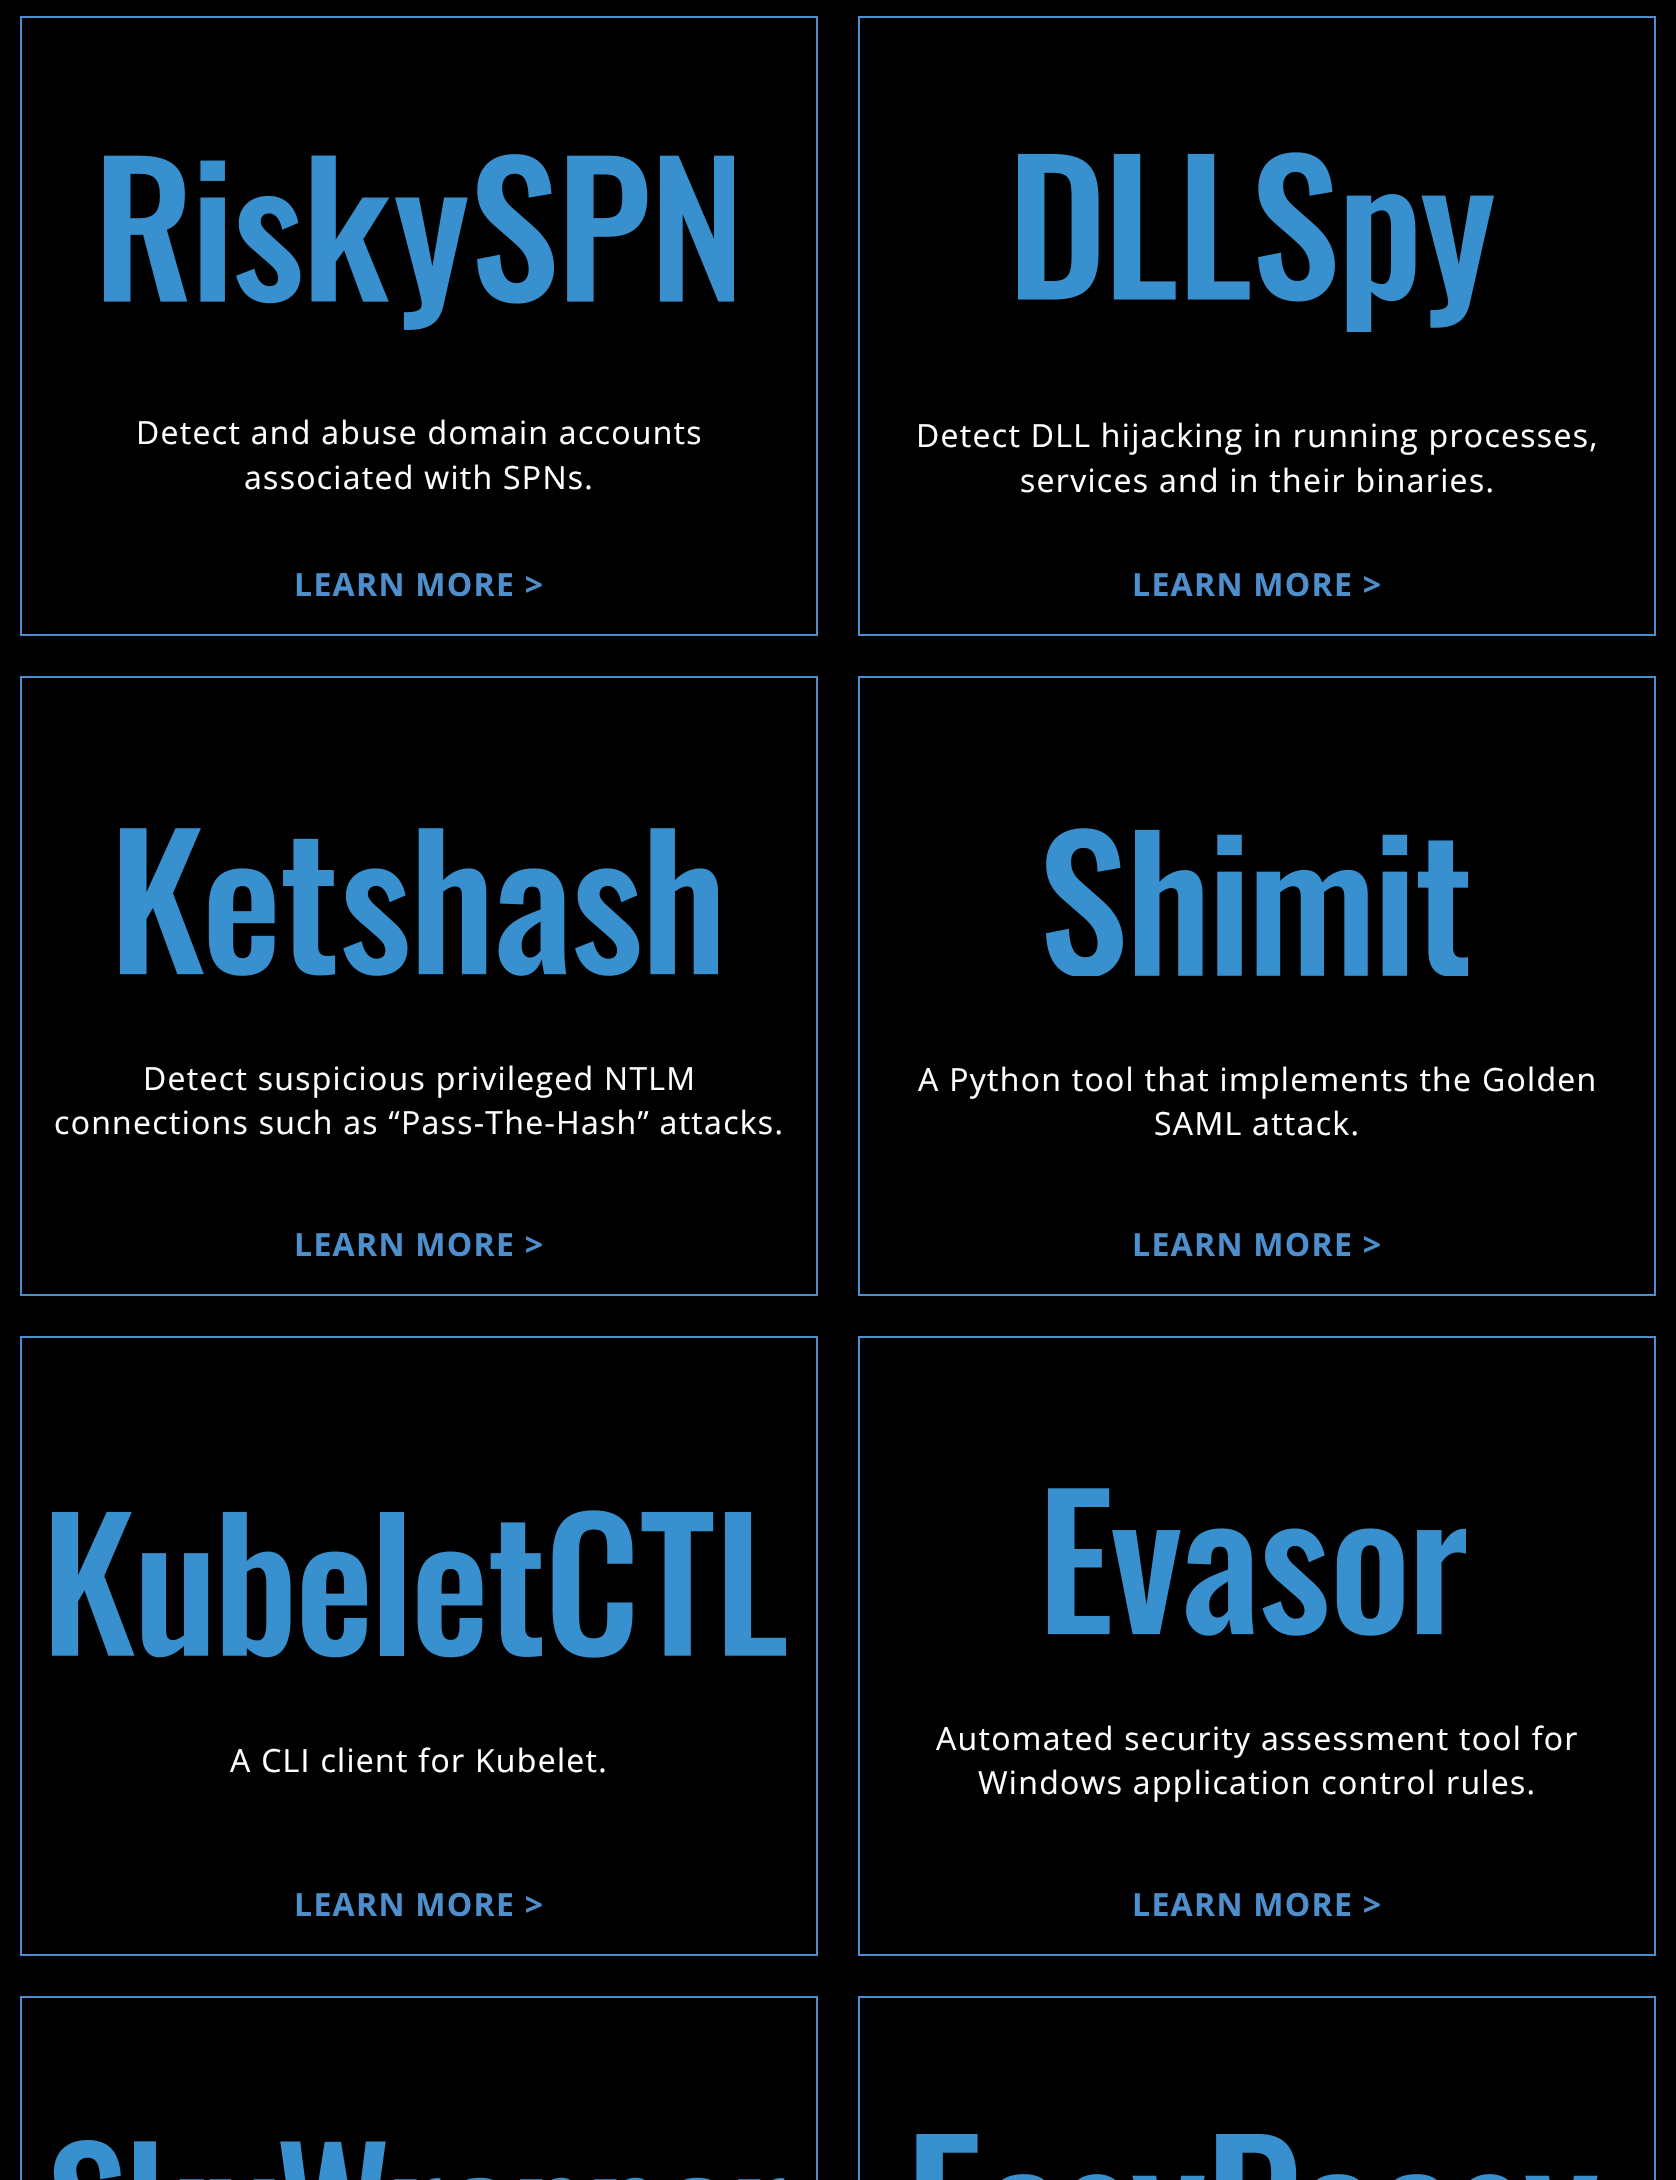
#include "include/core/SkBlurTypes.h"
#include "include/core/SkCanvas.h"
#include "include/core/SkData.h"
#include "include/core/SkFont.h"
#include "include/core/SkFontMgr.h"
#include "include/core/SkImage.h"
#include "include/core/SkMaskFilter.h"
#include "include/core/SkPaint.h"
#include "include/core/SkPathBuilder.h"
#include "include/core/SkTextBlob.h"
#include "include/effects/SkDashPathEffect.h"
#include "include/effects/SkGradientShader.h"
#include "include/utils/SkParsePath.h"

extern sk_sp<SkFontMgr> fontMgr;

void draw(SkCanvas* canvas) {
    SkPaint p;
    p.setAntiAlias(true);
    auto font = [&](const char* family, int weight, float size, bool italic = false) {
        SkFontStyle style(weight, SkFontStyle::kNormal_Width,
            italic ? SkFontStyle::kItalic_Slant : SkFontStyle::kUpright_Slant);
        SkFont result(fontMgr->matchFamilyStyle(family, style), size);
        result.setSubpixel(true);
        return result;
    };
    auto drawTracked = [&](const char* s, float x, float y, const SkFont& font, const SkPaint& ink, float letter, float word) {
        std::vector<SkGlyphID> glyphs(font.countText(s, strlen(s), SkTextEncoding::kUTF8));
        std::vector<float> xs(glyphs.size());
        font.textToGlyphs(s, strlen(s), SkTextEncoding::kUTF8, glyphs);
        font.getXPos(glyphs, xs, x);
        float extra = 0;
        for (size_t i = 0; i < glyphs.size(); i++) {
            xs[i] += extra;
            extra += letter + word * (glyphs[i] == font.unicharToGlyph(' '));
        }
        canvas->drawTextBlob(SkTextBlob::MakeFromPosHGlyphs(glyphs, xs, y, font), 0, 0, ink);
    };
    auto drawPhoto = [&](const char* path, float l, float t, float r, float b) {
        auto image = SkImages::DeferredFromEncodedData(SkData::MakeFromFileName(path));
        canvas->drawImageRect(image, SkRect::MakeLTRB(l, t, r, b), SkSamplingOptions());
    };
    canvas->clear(0xFF000000);
    p.setStyle(SkPaint::kStroke_Style);
    p.setStrokeWidth(2);
    p.setColor(0xFF4D8FCC);
    canvas->drawRect(SkRect::MakeLTRB(21, 17, 817, 635), p);
    drawPhoto("media/1.png", 104, 154, 734, 330);
    auto font1 = font("Open Sans", 400, 32);
    p.setStyle(SkPaint::kFill_Style);
    p.setColor(0xFFFFFFFF);
    drawTracked("Detect and abuse domain accounts", 136, 444, font1, p, 1.3f, 0);
    drawTracked("associated with SPNs.", 244, 489, font1, p, 1.3f, 0);
    auto font2 = font("Open Sans", 700, 32);
    p.setColor(0xFF4D8FCC);
    drawTracked("LEARN MORE >", 294, 596, font2, p, 1.3f, 0);
    p.setStyle(SkPaint::kStroke_Style);
    canvas->drawRect(SkRect::MakeLTRB(859, 17, 1655, 635), p);
    drawPhoto("media/2.png", 1018, 152, 1494, 332);
    p.setStyle(SkPaint::kFill_Style);
    p.setColor(0xFFFFFFFF);
    drawTracked("Detect DLL hijacking in running processes,", 916, 447, font1, p, 1.3f, 0);
    drawTracked("services and in their binaries.", 1020, 492, font1, p, 1.3f, 0);
    p.setColor(0xFF4D8FCC);
    drawTracked("LEARN MORE >", 1132, 596, font2, p, 1.3f, 0);
    p.setStyle(SkPaint::kStroke_Style);
    canvas->drawRect(SkRect::MakeLTRB(21, 677, 817, 1295), p);
    drawPhoto("media/3.png", 120, 828, 718, 976);
    p.setStyle(SkPaint::kFill_Style);
    p.setColor(0xFFFFFFFF);
    drawTracked("Detect suspicious privileged NTLM", 143, 1090, font1, p, 1.3f, 0);
    drawTracked("connections such as “Pass-The-Hash” attacks.", 54, 1134, font1, p, 1.3f, 0);
    p.setColor(0xFF4D8FCC);
    drawTracked("LEARN MORE >", 294, 1256, font2, p, 1.3f, 0);
    p.setStyle(SkPaint::kStroke_Style);
    canvas->drawRect(SkRect::MakeLTRB(859, 677, 1655, 1295), p);
    drawPhoto("media/4.png", 1046, 828, 1468, 976);
    p.setStyle(SkPaint::kFill_Style);
    p.setColor(0xFFFFFFFF);
    drawTracked("A Python tool that implements the Golden", 918, 1091, font1, p, 1.3f, 0);
    drawTracked("SAML attack.", 1154, 1135, font1, p, 1.3f, 0);
    p.setColor(0xFF4D8FCC);
    drawTracked("LEARN MORE >", 1132, 1256, font2, p, 1.3f, 0);
    p.setStyle(SkPaint::kStroke_Style);
    canvas->drawRect(SkRect::MakeLTRB(21, 1337, 817, 1955), p);
    drawPhoto("media/5.png", 52, 1510, 786, 1658);
    p.setStyle(SkPaint::kFill_Style);
    p.setColor(0xFFFFFFFF);
    drawTracked("A CLI client for Kubelet.", 230, 1772, font1, p, 1.3f, 0);
    p.setColor(0xFF4D8FCC);
    drawTracked("LEARN MORE >", 294, 1916, font2, p, 1.3f, 0);
    p.setStyle(SkPaint::kStroke_Style);
    canvas->drawRect(SkRect::MakeLTRB(859, 1337, 1655, 1955), p);
    drawPhoto("media/6.png", 1048, 1488, 1466, 1636);
    p.setStyle(SkPaint::kFill_Style);
    p.setColor(0xFFFFFFFF);
    drawTracked("Automated security assessment tool for", 936, 1750, font1, p, 1.3f, 0);
    drawTracked("Windows application control rules.", 978, 1794, font1, p, 1.3f, 0);
    p.setColor(0xFF4D8FCC);
    drawTracked("LEARN MORE >", 1132, 1916, font2, p, 1.3f, 0);
    p.setStyle(SkPaint::kStroke_Style);
    canvas->drawRect(SkRect::MakeLTRB(21, 1997, 817, 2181), p);
    drawPhoto("media/7.png", 53, 2140, 785, 2180);
    canvas->drawRect(SkRect::MakeLTRB(859, 1997, 1655, 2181), p);
    drawPhoto("media/8.png", 916, 2134, 1598, 2180);
}
